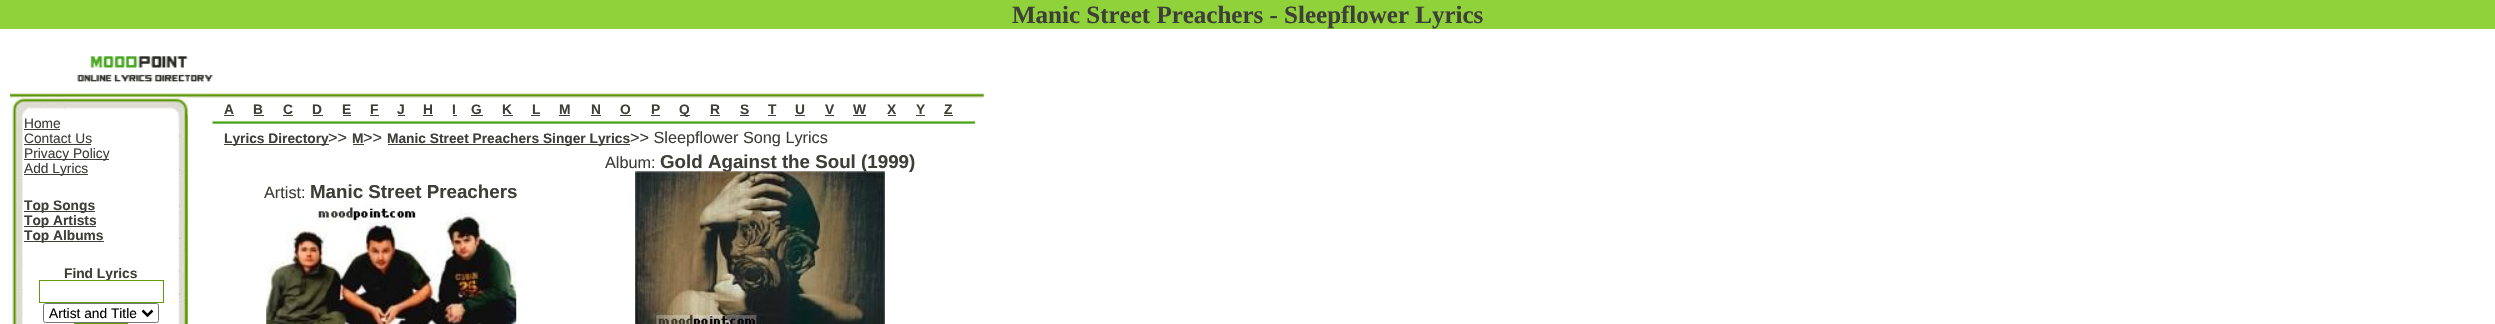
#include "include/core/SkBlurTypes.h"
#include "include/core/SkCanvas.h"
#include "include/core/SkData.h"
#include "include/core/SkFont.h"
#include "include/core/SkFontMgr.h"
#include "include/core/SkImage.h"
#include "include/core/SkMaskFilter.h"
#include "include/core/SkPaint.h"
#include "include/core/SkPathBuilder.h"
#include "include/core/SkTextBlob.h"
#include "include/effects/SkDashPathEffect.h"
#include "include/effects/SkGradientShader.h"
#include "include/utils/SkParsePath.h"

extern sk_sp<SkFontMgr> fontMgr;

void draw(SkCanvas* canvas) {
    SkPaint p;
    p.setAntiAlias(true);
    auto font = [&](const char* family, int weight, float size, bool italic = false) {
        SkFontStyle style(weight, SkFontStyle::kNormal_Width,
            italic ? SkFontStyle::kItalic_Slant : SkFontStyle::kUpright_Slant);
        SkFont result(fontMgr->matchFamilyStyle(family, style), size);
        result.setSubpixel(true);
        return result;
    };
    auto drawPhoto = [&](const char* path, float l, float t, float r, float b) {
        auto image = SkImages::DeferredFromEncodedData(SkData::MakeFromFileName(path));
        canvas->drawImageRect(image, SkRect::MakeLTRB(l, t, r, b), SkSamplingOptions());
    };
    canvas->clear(0xFFFFFFFF);
    p.setColor(0xFF90D23A);
    canvas->drawRect(SkRect::MakeLTRB(0, 0, 2495, 29), p);
    auto font1 = font("Liberation Serif", 700, 25);
    p.setColor(0xFF3E3F39);
    canvas->drawString("Manic Street Preachers - Sleepflower Lyrics", 1012, 23, font1, p);
    drawPhoto("media/1.png", 77, 56, 213, 94);
    drawPhoto("media/2.png", 9, 93, 984, 98);
    drawPhoto("media/3.png", 12, 97, 188, 115);
    drawPhoto("media/4.png", 12, 115, 24, 324);
    auto font2 = font("Liberation Sans", 400, 13.75f);
    canvas->drawString("Home", 24, 128, font2, p);
    canvas->drawRect(SkRect::MakeLTRB(24, 129, 60, 130), p);
    canvas->drawString("Contact Us", 24, 143, font2, p);
    canvas->drawRect(SkRect::MakeLTRB(24, 144, 91, 145), p);
    canvas->drawRect(SkRect::MakeLTRB(24, 159, 109, 160), p);
    canvas->drawString("Privacy Policy", 24, 158, font2, p);
    canvas->drawRect(SkRect::MakeLTRB(24, 174, 88, 175), p);
    canvas->drawString("Add Lyrics", 24, 173, font2, p);
    canvas->drawRect(SkRect::MakeLTRB(24, 211, 95, 212), p);
    auto font3 = font("Liberation Sans", 700, 13.75f);
    canvas->drawString("Top Songs", 24, 210, font3, p);
    canvas->drawRect(SkRect::MakeLTRB(24, 226, 96, 227), p);
    canvas->drawString("Top Artists", 24, 225, font3, p);
    canvas->drawRect(SkRect::MakeLTRB(24, 241, 104, 242), p);
    canvas->drawString("Top Albums", 24, 240, font3, p);
    canvas->drawString("Find Lyrics", 64, 278, font3, p);
    p.setStyle(SkPaint::kStroke_Style);
    p.setStrokeWidth(1);
    p.setColor(0xFF629C05);
    canvas->drawRect(SkRect::MakeLTRB(39.5f, 280.5f, 163.5f, 302.5f), p);
    p.setColor(0xFF767676);
    canvas->drawRoundRect(SkRect::MakeLTRB(43.5f, 303.5f, 158.5f, 322.5f), 2, 2, p);
    p.setStrokeWidth(2.5f);
    p.setColor(0xFF000000);
    canvas->drawPath(SkPathBuilder().moveTo(142.5f, 310.5f).lineTo(147.5f, 315.5f).lineTo(152.5f, 310.5f).detach(), p);
    p.setStyle(SkPaint::kFill_Style);
    canvas->drawString("Artist and Title", 49, 318, font2, p);
    p.setStyle(SkPaint::kStroke_Style);
    p.setStrokeWidth(1);
    p.setColor(0xFF629C05);
    canvas->drawRect(SkRect::MakeLTRB(74.5f, 323.5f, 127.5f, 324.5f), p);
    drawPhoto("media/5.png", 177, 115, 188, 324);
    drawPhoto("media/6.png", 177, 115, 188, 324);
    p.setStyle(SkPaint::kFill_Style);
    p.setColor(0xFF3E3F39);
    canvas->drawString("A", 224, 114, font3, p);
    canvas->drawRect(SkRect::MakeLTRB(224, 115, 234, 116), p);
    canvas->drawString("B", 253, 114, font3, p);
    canvas->drawRect(SkRect::MakeLTRB(254, 115, 264, 116), p);
    canvas->drawString("C", 283, 114, font3, p);
    canvas->drawRect(SkRect::MakeLTRB(283, 115, 293, 116), p);
    canvas->drawString("D", 312, 114, font3, p);
    canvas->drawRect(SkRect::MakeLTRB(313, 115, 323, 116), p);
    canvas->drawString("E", 342, 114, font3, p);
    canvas->drawRect(SkRect::MakeLTRB(343, 115, 351, 116), p);
    canvas->drawString("F", 370, 114, font3, p);
    canvas->drawRect(SkRect::MakeLTRB(370, 115, 379, 116), p);
    canvas->drawString("J", 397, 114, font3, p);
    canvas->drawRect(SkRect::MakeLTRB(398, 115, 405, 116), p);
    canvas->drawString("H", 423, 114, font3, p);
    canvas->drawRect(SkRect::MakeLTRB(423, 115, 433, 116), p);
    canvas->drawString("I", 452, 114, font3, p);
    canvas->drawRect(SkRect::MakeLTRB(453, 115, 457, 116), p);
    canvas->drawString("G", 471, 114, font3, p);
    canvas->drawRect(SkRect::MakeLTRB(471, 115, 483, 116), p);
    canvas->drawString("K", 502, 114, font3, p);
    canvas->drawRect(SkRect::MakeLTRB(503, 115, 513, 116), p);
    canvas->drawString("L", 532, 114, font3, p);
    canvas->drawRect(SkRect::MakeLTRB(531, 115, 540, 116), p);
    canvas->drawString("M", 559, 114, font3, p);
    canvas->drawRect(SkRect::MakeLTRB(559, 115, 570, 116), p);
    canvas->drawString("N", 591, 114, font3, p);
    canvas->drawRect(SkRect::MakeLTRB(591, 115, 601, 116), p);
    canvas->drawString("O", 620, 114, font3, p);
    canvas->drawRect(SkRect::MakeLTRB(620, 115, 631, 116), p);
    canvas->drawString("P", 651, 114, font3, p);
    canvas->drawRect(SkRect::MakeLTRB(651, 115, 660, 116), p);
    canvas->drawRect(SkRect::MakeLTRB(680, 115, 690, 116), p);
    canvas->drawString("Q", 679, 114, font3, p);
    canvas->drawString("R", 710, 114, font3, p);
    canvas->drawRect(SkRect::MakeLTRB(710, 115, 720, 116), p);
    canvas->drawString("S", 740, 114, font3, p);
    canvas->drawRect(SkRect::MakeLTRB(740, 115, 749, 116), p);
    canvas->drawString("T", 768, 114, font3, p);
    canvas->drawRect(SkRect::MakeLTRB(768, 115, 776, 116), p);
    canvas->drawString("U", 795, 114, font3, p);
    canvas->drawRect(SkRect::MakeLTRB(795, 115, 805, 116), p);
    canvas->drawString("V", 825, 114, font3, p);
    canvas->drawRect(SkRect::MakeLTRB(825, 115, 834, 116), p);
    canvas->drawString("W", 853, 114, font3, p);
    canvas->drawRect(SkRect::MakeLTRB(853, 115, 866, 116), p);
    canvas->drawString("X", 887, 114, font3, p);
    canvas->drawRect(SkRect::MakeLTRB(888, 115, 896, 116), p);
    canvas->drawString("Y", 916, 114, font3, p);
    canvas->drawRect(SkRect::MakeLTRB(916, 115, 925, 116), p);
    canvas->drawString("Z", 944, 114, font3, p);
    canvas->drawRect(SkRect::MakeLTRB(944, 115, 953, 116), p);
    drawPhoto("media/7.png", 212, 120, 975, 124);
    canvas->drawRect(SkRect::MakeLTRB(224, 144, 329, 145), p);
    canvas->drawString("Lyrics Directory", 224, 143, font3, p);
    auto font4 = font("Liberation Sans", 400, 16.25f);
    canvas->drawString(">>", 328, 143, font4, p);
    canvas->drawString("M", 352, 143, font3, p);
    canvas->drawRect(SkRect::MakeLTRB(353, 144, 364, 145), p);
    canvas->drawString(">>", 363, 143, font4, p);
    canvas->drawRect(SkRect::MakeLTRB(388, 144, 630, 145), p);
    canvas->drawString("Manic Street Preachers Singer Lyrics", 387, 143, font3, p);
    canvas->drawString(">> Sleepflower Song Lyrics", 630, 143, font4, p);
    canvas->drawString("Album:", 605, 168, font4, p);
    auto font5 = font("Liberation Sans", 700, 18.75f);
    canvas->drawString("Gold Against the Soul (1999)", 660, 168, font5, p);
    drawPhoto("media/8.png", 635, 171, 885, 324);
    canvas->drawString("Artist:", 264, 198, font4, p);
    canvas->drawString("Manic Street Preachers", 310, 198, font5, p);
    drawPhoto("media/9.png", 266, 201, 517, 324);
}
